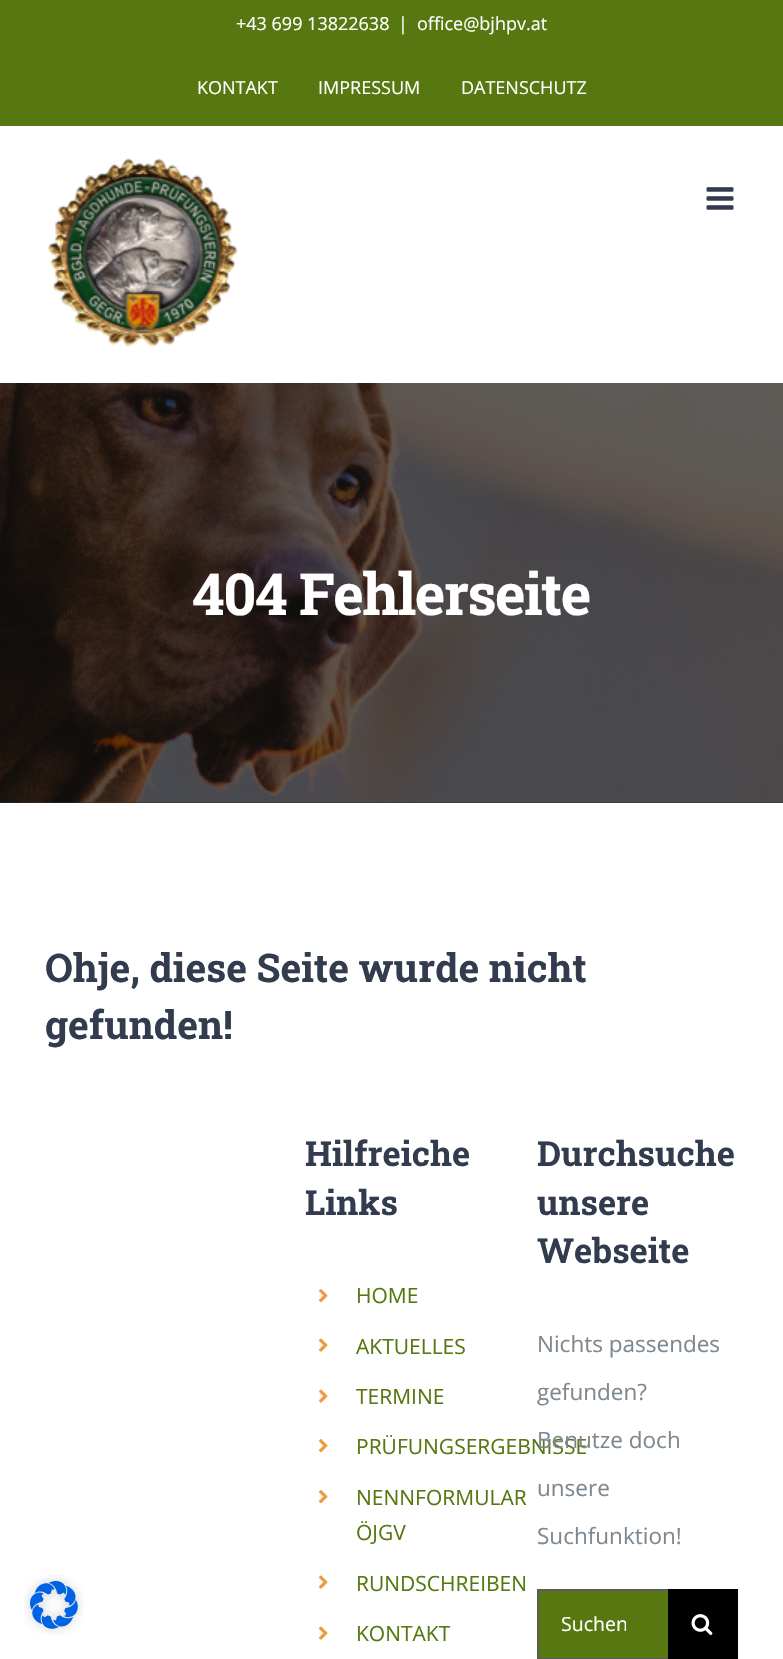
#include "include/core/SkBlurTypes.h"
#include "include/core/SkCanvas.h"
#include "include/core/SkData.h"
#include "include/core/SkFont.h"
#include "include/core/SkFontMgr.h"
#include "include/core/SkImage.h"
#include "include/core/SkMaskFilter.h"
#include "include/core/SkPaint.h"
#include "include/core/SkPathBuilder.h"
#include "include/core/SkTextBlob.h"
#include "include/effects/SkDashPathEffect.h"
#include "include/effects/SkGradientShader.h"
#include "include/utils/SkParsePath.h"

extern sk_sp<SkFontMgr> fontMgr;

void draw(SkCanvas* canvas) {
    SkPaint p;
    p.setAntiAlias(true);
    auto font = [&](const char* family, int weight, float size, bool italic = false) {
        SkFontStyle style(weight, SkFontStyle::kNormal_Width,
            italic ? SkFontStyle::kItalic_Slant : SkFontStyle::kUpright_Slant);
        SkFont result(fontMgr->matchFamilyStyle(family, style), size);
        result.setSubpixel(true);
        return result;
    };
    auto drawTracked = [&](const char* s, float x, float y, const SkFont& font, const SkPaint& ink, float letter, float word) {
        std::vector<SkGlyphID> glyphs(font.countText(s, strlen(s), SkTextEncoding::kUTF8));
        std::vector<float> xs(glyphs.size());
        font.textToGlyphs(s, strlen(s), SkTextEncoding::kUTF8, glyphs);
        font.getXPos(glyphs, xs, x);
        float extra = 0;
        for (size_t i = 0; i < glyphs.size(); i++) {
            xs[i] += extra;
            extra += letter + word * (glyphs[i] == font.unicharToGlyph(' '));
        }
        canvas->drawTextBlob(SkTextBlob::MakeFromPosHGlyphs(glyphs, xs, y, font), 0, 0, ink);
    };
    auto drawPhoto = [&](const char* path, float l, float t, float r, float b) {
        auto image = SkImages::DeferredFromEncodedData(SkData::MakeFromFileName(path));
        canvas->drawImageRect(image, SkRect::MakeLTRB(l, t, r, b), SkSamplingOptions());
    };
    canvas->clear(0xFFFFFFFF);
    p.setColor(0xFF577810);
    canvas->drawRect(SkRect::MakeLTRB(0, 0, 783, 126), p);
    auto font1 = font("Open Sans", 400, 18);
    p.setColor(0xFFFFFFFF);
    {
        const struct { const char* s; float x, y; } items[] = {
            {"+43 699 13822638", 236, 30},
            {"|", 398, 30},
            {"office@bjhpv.at", 417, 30},
            {"KONTAKT", 197, 94},
            {"IMPRESSUM", 318, 94},
            {"DATENSCHUTZ", 461, 94},
        };
        for (auto [s, x, y] : items) {
            canvas->drawString(s, x, y, font1, p);
        }
    }
    drawPhoto("media/1.png", 47, 158, 238, 347);
    drawPhoto("media/2.png", 706, 187, 734, 210);
    p.setColor(0xFF2C2F39);
    canvas->drawRect(SkRect::MakeLTRB(0, 802, 783, 803), p);
    drawPhoto("media/3.png", 0, 383, 783, 803);
    auto font2 = font("Roboto Slab", 700, 58);
    p.setColor(0xFFFFFFFF);
    drawTracked("404 Fehlerseite", 192, 615, font2, p, -1.5f, 0);
    auto font3 = font("Roboto Slab", 700, 39.4f);
    p.setColor(0xFF333C4E);
    canvas->drawString("Ohje, diese Seite wurde nicht", 45, 982, font3, p);
    canvas->drawString("gefunden!", 45, 1039, font3, p);
    auto font4 = font("Roboto Slab", 700, 34.5f);
    canvas->drawString("Hilfreiche", 305, 1166, font4, p);
    canvas->drawString("Links", 305, 1215, font4, p);
    drawPhoto("media/4.png", 319, 1289, 328, 1303);
    auto font5 = font("Open Sans", 400, 21);
    p.setColor(0xFF577810);
    canvas->drawString("HOME", 356, 1303, font5, p);
    drawPhoto("media/5.png", 319, 1338, 328, 1352);
    canvas->drawString("AKTUELLES", 356, 1354, font5, p);
    drawPhoto("media/5.png", 319, 1389, 328, 1403);
    canvas->drawString("TERMINE", 356, 1404, font5, p);
    drawPhoto("media/4.png", 319, 1439, 328, 1453);
    canvas->drawString("PRÜFUNGSERGEBNISSE", 356, 1454, font5, p);
    drawPhoto("media/4.png", 319, 1490, 328, 1504);
    canvas->drawString("NENNFORMULAR", 356, 1505, font5, p);
    canvas->drawString("ÖJGV", 356, 1540, font5, p);
    drawPhoto("media/5.png", 319, 1575, 328, 1589);
    canvas->drawString("RUNDSCHREIBEN", 356, 1591, font5, p);
    drawPhoto("media/5.png", 319, 1626, 328, 1640);
    canvas->drawString("KONTAKT", 356, 1641, font5, p);
    p.setColor(0xFF333C4E);
    {
        const struct { const char* s; float x, y; } items[] = {
            {"Durchsuche", 537, 1166},
            {"unsere", 537, 1215},
            {"Webseite", 537, 1263},
        };
        for (auto [s, x, y] : items) {
            canvas->drawString(s, x, y, font4, p);
        }
    }
    auto font6 = font("Open Sans", 400, 22.5f);
    p.setColor(0xFF7E8890);
    {
        const struct { const char* s; float x, y; } items[] = {
            {"Nichts passendes", 537, 1352},
            {"gefunden?", 537, 1400},
            {"Benutze doch", 537, 1448},
            {"unsere", 537, 1496},
            {"Suchfunktion!", 537, 1544},
        };
        for (auto [s, x, y] : items) {
            canvas->drawString(s, x, y, font6, p);
        }
    }
    {
        const struct { float l, t, r, b; SkColor color; } items[] = {
            {539, 1591, 668, 1658, 0xFF577810},
            {537, 1589, 668, 1591, 0xFF5B5B5B},
            {537, 1658, 668, 1659, 0xFF5B5B5B},
            {537, 1589, 539, 1659, 0xFF5B5B5B},
        };
        for (auto [l, t, r, b, color] : items) {
            p.setColor(color);
            canvas->drawRect(SkRect::MakeLTRB(l, t, r, b), p);
        }
    }
    canvas->save();
    canvas->clipRect(SkRect::MakeLTRB(561, 1611, 626, 1638));
    auto font7 = font("Open Sans", 400, 19.5f);
    p.setColor(0xFFFFFFFF);
    canvas->drawString("Suchen", 561, 1631, font7, p);
    canvas->restore();
    p.setColor(0xFF000000);
    canvas->drawRect(SkRect::MakeLTRB(668, 1589, 738, 1659), p);
    drawPhoto("media/6.png", 691, 1614, 713, 1635);
    drawPhoto("media/7.png", 24, 1575, 84, 1635);
}
